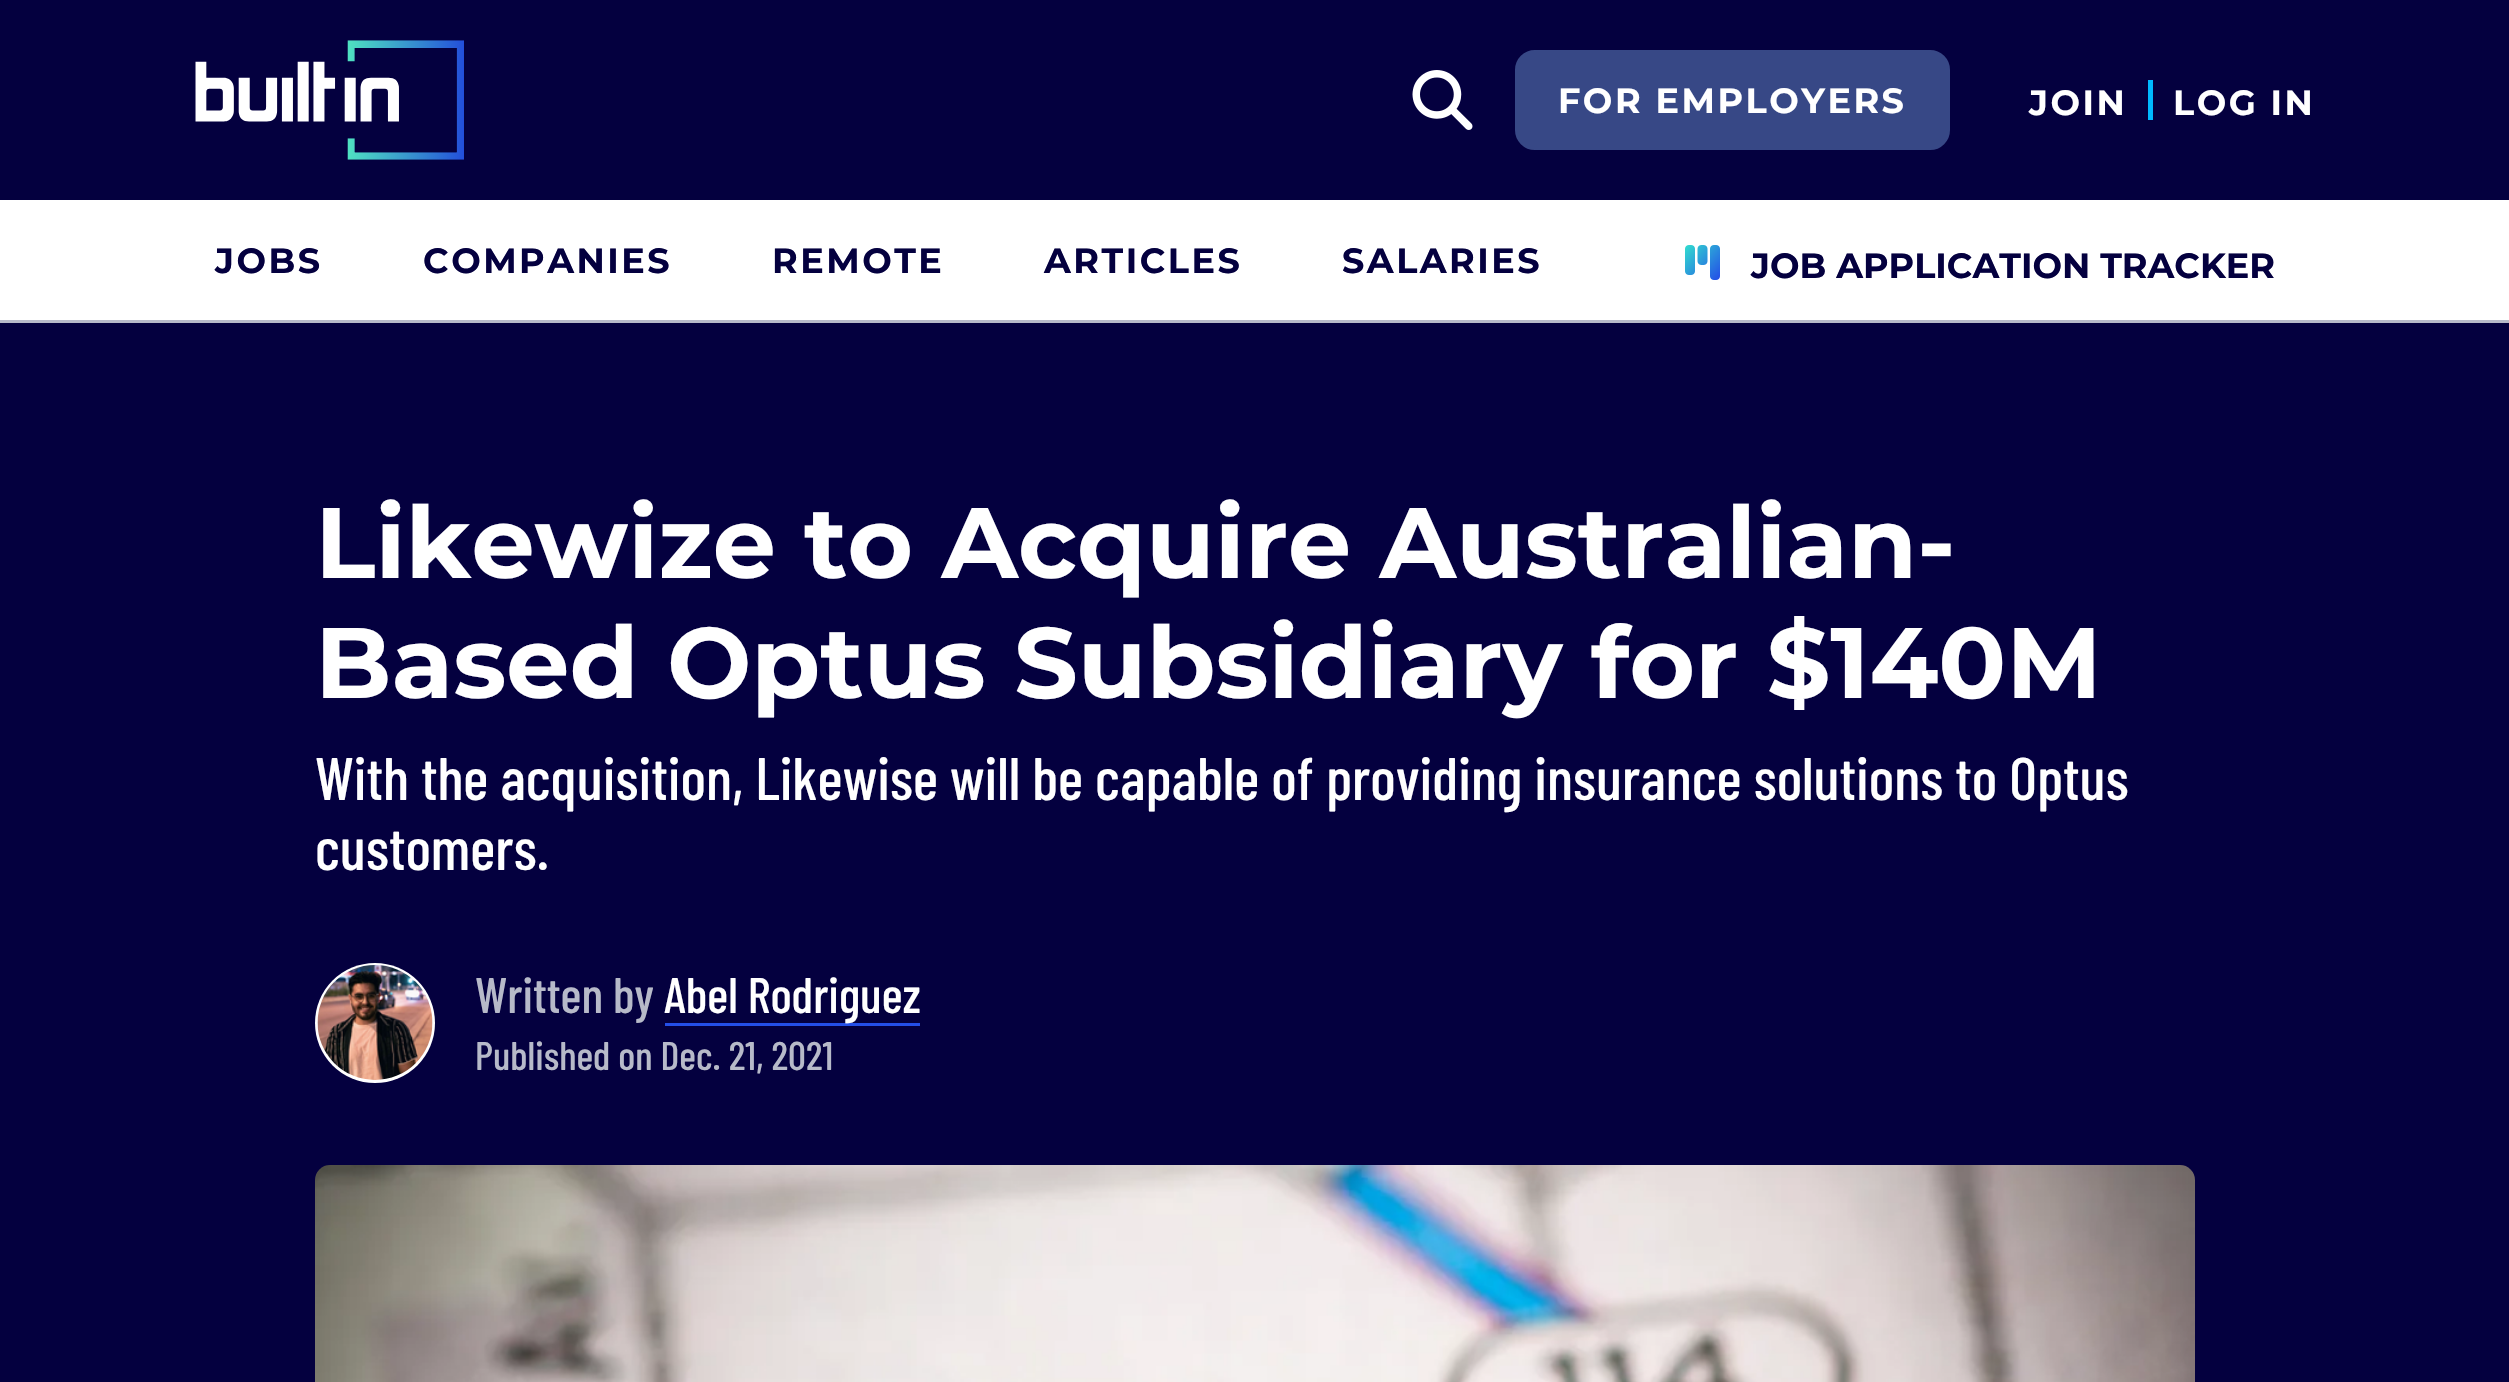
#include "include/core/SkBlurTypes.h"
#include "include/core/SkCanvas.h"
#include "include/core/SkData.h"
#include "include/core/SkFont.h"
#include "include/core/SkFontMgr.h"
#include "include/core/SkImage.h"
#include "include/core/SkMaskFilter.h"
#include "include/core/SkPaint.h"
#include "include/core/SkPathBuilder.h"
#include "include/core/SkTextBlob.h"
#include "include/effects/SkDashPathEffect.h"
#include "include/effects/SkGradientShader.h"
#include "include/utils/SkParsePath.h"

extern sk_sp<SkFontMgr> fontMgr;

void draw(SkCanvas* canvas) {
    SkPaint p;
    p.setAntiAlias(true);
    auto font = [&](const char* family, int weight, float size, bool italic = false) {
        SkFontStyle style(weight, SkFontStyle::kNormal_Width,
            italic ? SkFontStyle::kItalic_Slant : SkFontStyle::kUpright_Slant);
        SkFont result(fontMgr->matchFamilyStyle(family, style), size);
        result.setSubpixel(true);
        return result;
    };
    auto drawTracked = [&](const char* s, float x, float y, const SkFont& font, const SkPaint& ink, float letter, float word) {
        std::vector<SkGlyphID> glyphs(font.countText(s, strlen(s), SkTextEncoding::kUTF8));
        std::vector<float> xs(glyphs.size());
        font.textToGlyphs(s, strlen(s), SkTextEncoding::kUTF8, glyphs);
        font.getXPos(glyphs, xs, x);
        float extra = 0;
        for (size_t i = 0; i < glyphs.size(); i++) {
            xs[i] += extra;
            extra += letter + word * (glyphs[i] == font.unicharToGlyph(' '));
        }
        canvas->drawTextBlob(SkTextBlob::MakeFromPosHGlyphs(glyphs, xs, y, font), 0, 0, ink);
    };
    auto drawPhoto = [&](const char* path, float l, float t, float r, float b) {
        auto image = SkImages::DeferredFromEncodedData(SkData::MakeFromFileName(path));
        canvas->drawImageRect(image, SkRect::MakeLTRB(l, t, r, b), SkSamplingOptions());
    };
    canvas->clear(0xFFFFFFFF);
    p.setColor(0xFF04003F);
    canvas->drawRect(SkRect::MakeLTRB(0, 0, 2509, 200), p);
    drawPhoto("media/1.png", 195, 40, 464, 160);
    drawPhoto("media/2.png", 1412, 70, 1473, 130);
    p.setColor(0xFF374886);
    canvas->drawRoundRect(SkRect::MakeLTRB(1516.5f, 51.5f, 1948.5f, 148.5f), 18.5f, 18.5f, p);
    p.setStyle(SkPaint::kStroke_Style);
    p.setStrokeWidth(3);
    canvas->drawRoundRect(SkRect::MakeLTRB(1516.5f, 51.5f, 1948.5f, 148.5f), 18.5f, 18.5f, p);
    auto font1 = font("Montserrat", 100, 35);
    p.setStyle(SkPaint::kFill_Style);
    p.setColor(0xFFFFFFFF);
    drawTracked("FOR EMPLOYERS", 1558, 113, font1, p, 2.5f, 0);
    drawTracked("JOIN", 2029, 115, font1, p, 2.5f, 0);
    p.setColor(0xFF00B9FE);
    canvas->drawRect(SkRect::MakeLTRB(2148, 80, 2153, 120), p);
    p.setColor(0xFFFFFFFF);
    drawTracked("LOG IN", 2173, 115, font1, p, 2.5f, 0);
    p.setColor(0xFFB7BAC9);
    canvas->drawRect(SkRect::MakeLTRB(0, 320, 2509, 323), p);
    p.setColor(0xFF04003F);
    {
        const struct { const char* s; float x, y; } items[] = {
            {"JOBS", 215, 273},
            {"COMPANIES", 423, 273},
            {"REMOTE", 772, 273},
            {"ARTICLES", 1044, 273},
            {"SALARIES", 1342, 273},
        };
        for (auto [s, x, y] : items) {
            drawTracked(s, x, y, font1, p, 2.5f, 0);
        }
    }
    drawPhoto("media/3.png", 1685, 245, 1720, 280);
    canvas->drawString("JOB APPLICATION TRACKER", 1751, 278, font1, p);
    canvas->drawRect(SkRect::MakeLTRB(0, 323, 2509, 1382), p);
    auto font2 = font("Montserrat", 100, 100);
    p.setColor(0xFFFFFFFF);
    canvas->drawString("Likewize to Acquire Australian-", 315, 578, font2, p);
    canvas->drawString("Based Optus Subsidiary for $140M", 315, 698, font2, p);
    auto font3 = font("Barlow Condensed", 500, 60);
    canvas->drawString("With the acquisition, Likewise will be capable of providing insurance solutions to Optus", 315, 800, font3, p);
    canvas->drawString("customers.", 315, 870, font3, p);
    canvas->drawCircle(375, 1023, 60, p);
    drawPhoto("media/4.png", 317, 965, 433, 1080);
    auto font4 = font("Barlow Condensed", 500, 50);
    p.setColor(0xFFB7BAC9);
    canvas->drawString("Written by", 475, 1013, font4, p);
    p.setColor(0xFF244FE7);
    canvas->drawRect(SkRect::MakeLTRB(665, 1023, 920, 1026), p);
    p.setColor(0xFFFFFFFF);
    canvas->drawString("Abel Rodriguez", 664, 1013, font4, p);
    auto font5 = font("Barlow Condensed", 500, 40);
    p.setColor(0xFFB7BAC9);
    canvas->drawString("Published on Dec. 21, 2021", 475, 1070, font5, p);
    drawPhoto("media/5.png", 315, 1165, 2195, 1382);
}
